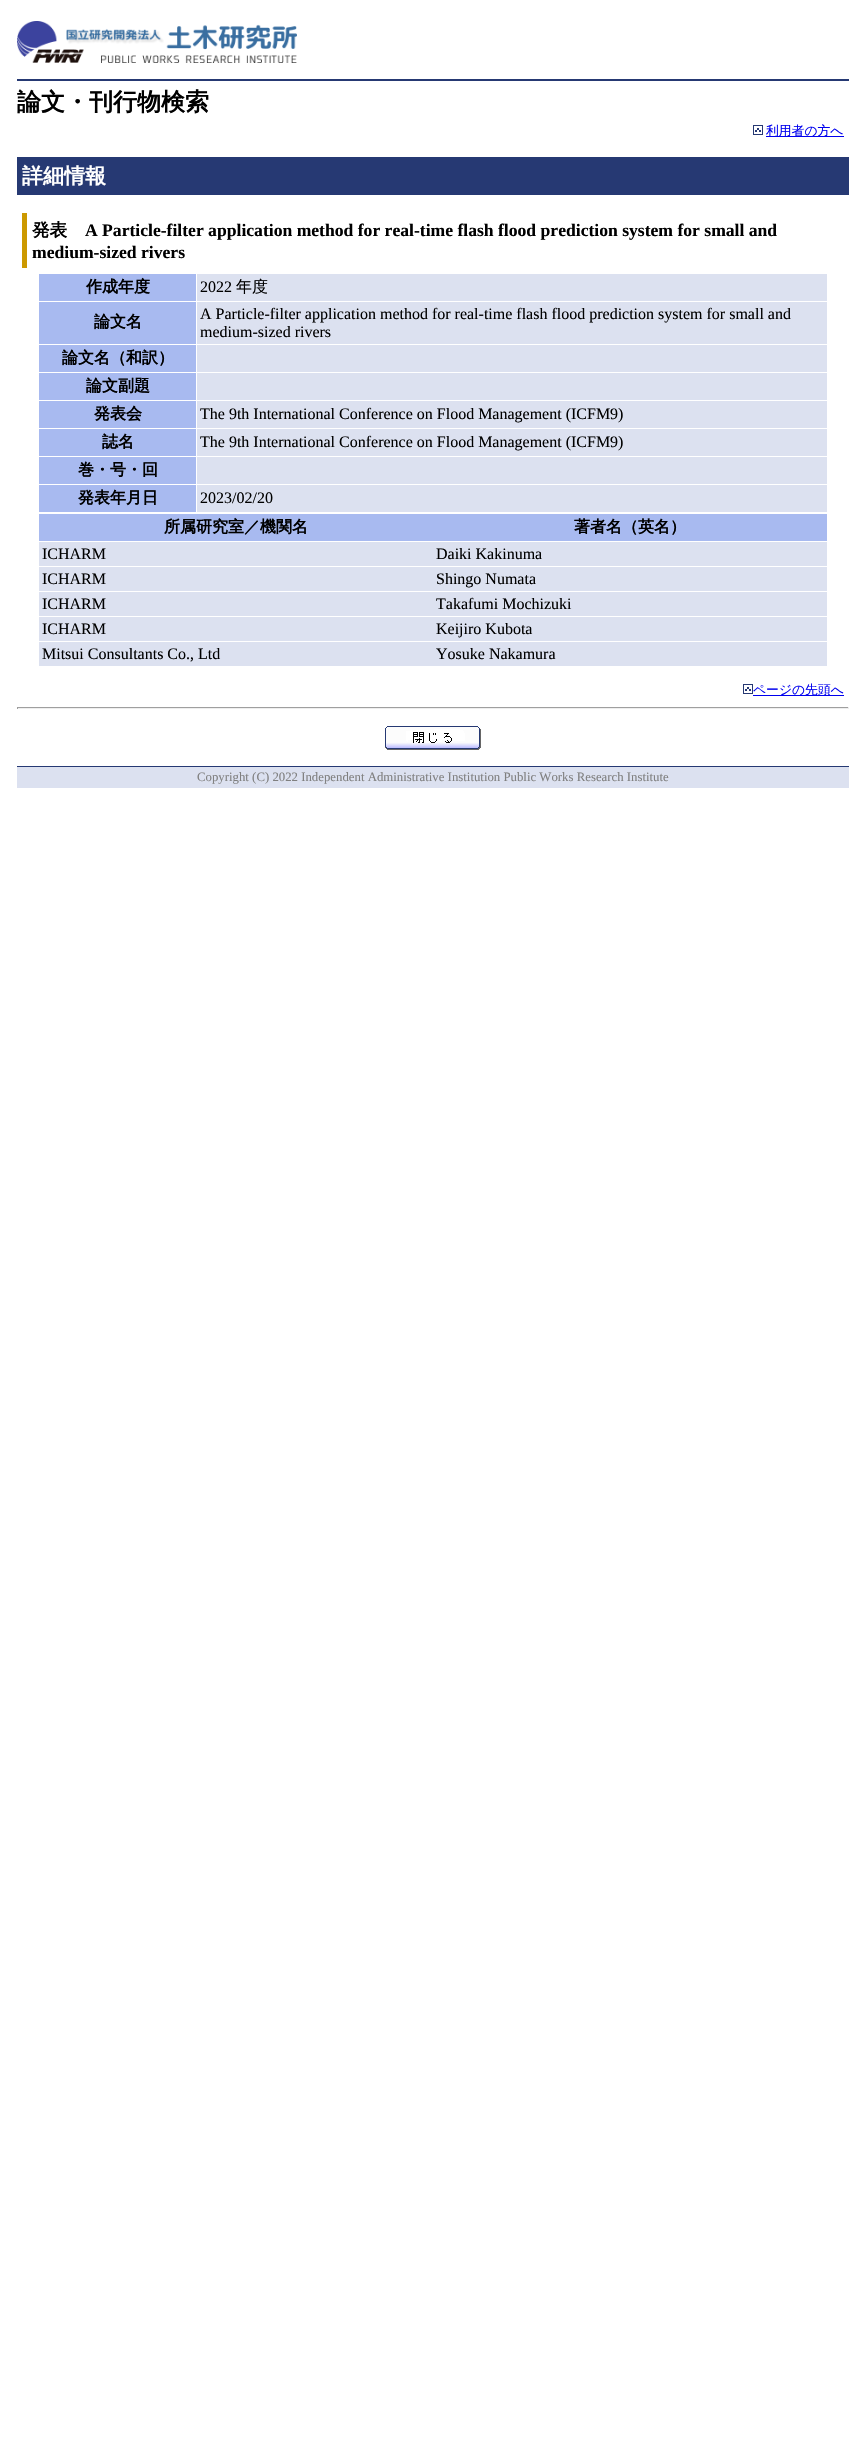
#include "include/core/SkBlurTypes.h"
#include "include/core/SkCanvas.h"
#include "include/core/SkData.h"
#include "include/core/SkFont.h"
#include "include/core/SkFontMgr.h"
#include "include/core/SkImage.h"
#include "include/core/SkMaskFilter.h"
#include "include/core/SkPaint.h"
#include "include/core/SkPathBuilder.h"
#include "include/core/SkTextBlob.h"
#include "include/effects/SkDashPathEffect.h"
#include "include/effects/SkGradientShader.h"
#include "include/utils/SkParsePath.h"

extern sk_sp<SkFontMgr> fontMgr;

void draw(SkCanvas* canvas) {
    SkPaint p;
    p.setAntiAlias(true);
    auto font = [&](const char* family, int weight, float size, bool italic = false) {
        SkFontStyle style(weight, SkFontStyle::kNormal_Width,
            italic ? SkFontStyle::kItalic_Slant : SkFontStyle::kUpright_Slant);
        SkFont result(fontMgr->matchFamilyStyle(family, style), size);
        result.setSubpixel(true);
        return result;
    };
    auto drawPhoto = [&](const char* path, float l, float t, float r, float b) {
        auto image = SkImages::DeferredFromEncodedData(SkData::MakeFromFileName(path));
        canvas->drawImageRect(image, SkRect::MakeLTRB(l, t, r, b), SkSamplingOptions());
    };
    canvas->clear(0xFFFFFFFF);
    p.setColor(0xFF263973);
    canvas->drawRect(SkRect::MakeLTRB(17, 79, 849, 81), p);
    drawPhoto("media/1.png", 17, 21, 297, 63);
    auto font1 = font("WenQuanYi Zen Hei", 700, 24);
    p.setColor(0xFF000000);
    canvas->drawString("論文・刊行物検索", 17, 110, font1, p);
    drawPhoto("media/2.png", 753, 125, 763, 135);
    p.setColor(0xFF0000EE);
    canvas->drawRect(SkRect::MakeLTRB(766, 136, 844, 137), p);
    auto font2 = font("WenQuanYi Zen Hei", 500, 12.8f);
    canvas->drawString("利用者の方へ", 766, 135, font2, p);
    p.setColor(0xFF263973);
    canvas->drawRect(SkRect::MakeLTRB(17, 157, 849, 195), p);
    auto font3 = font("WenQuanYi Zen Hei", 700, 21);
    p.setColor(0xFFFFFFFF);
    canvas->drawString("詳細情報", 22, 183, font3, p);
    p.setColor(0xFFCC9900);
    canvas->drawRect(SkRect::MakeLTRB(22, 213, 27, 268), p);
    auto font4 = font("WenQuanYi Zen Hei", 700, 17.6f);
    p.setColor(0xFF000000);
    canvas->drawString("発表", 32, 236, font4, p);
    auto font5 = font("Liberation Serif", 700, 17.6f);
    canvas->drawString("A Particle-filter application method for real-time flash flood prediction system for small and", 85, 236, font5, p);
    canvas->drawString("medium-sized rivers", 32, 258, font5, p);
    p.setColor(0xFFA8BAF0);
    canvas->drawRect(SkRect::MakeLTRB(39, 274, 196, 301), p);
    auto font6 = font("WenQuanYi Zen Hei", 700, 16);
    p.setColor(0xFF000000);
    canvas->drawString("作成年度", 86, 292, font6, p);
    p.setColor(0xFFDCE1F0);
    canvas->drawRect(SkRect::MakeLTRB(197, 274, 827, 301), p);
    auto font7 = font("Liberation Serif", 400, 16);
    p.setColor(0xFF000000);
    canvas->drawString("2022", 200, 292, font7, p);
    auto font8 = font("WenQuanYi Zen Hei", 500, 16);
    canvas->drawString("年度", 236, 292, font8, p);
    p.setColor(0xFFA8BAF0);
    canvas->drawRect(SkRect::MakeLTRB(39, 302, 196, 344), p);
    p.setColor(0xFF000000);
    canvas->drawString("論文名", 94, 327, font6, p);
    p.setColor(0xFFDCE1F0);
    canvas->drawRect(SkRect::MakeLTRB(197, 302, 827, 344), p);
    p.setColor(0xFF000000);
    canvas->drawString("A Particle-filter application method for real-time flash flood prediction system for small and", 200, 319, font7, p);
    canvas->drawString("medium-sized rivers", 200, 337, font7, p);
    p.setColor(0xFFA8BAF0);
    canvas->drawRect(SkRect::MakeLTRB(39, 345, 196, 372), p);
    p.setColor(0xFF000000);
    canvas->drawString("論文名（和訳）", 62, 363, font6, p);
    p.setColor(0xFFDCE1F0);
    canvas->drawRect(SkRect::MakeLTRB(197, 345, 827, 372), p);
    p.setColor(0xFFA8BAF0);
    canvas->drawRect(SkRect::MakeLTRB(39, 373, 196, 400), p);
    p.setColor(0xFF000000);
    canvas->drawString("論文副題", 86, 391, font6, p);
    p.setColor(0xFFDCE1F0);
    canvas->drawRect(SkRect::MakeLTRB(197, 373, 827, 400), p);
    p.setColor(0xFFA8BAF0);
    canvas->drawRect(SkRect::MakeLTRB(39, 401, 196, 428), p);
    p.setColor(0xFF000000);
    canvas->drawString("発表会", 94, 419, font6, p);
    p.setColor(0xFFDCE1F0);
    canvas->drawRect(SkRect::MakeLTRB(197, 401, 827, 428), p);
    p.setColor(0xFF000000);
    canvas->drawString("The 9th International Conference on Flood Management (ICFM9)", 200, 419, font7, p);
    p.setColor(0xFFA8BAF0);
    canvas->drawRect(SkRect::MakeLTRB(39, 429, 196, 456), p);
    p.setColor(0xFF000000);
    canvas->drawString("誌名", 102, 447, font6, p);
    p.setColor(0xFFDCE1F0);
    canvas->drawRect(SkRect::MakeLTRB(197, 429, 827, 456), p);
    p.setColor(0xFF000000);
    canvas->drawString("The 9th International Conference on Flood Management (ICFM9)", 200, 447, font7, p);
    p.setColor(0xFFA8BAF0);
    canvas->drawRect(SkRect::MakeLTRB(39, 457, 196, 484), p);
    p.setColor(0xFF000000);
    canvas->drawString("巻・号・回", 78, 475, font6, p);
    p.setColor(0xFFDCE1F0);
    canvas->drawRect(SkRect::MakeLTRB(197, 457, 827, 484), p);
    p.setColor(0xFFA8BAF0);
    canvas->drawRect(SkRect::MakeLTRB(39, 485, 196, 512), p);
    p.setColor(0xFF000000);
    canvas->drawString("発表年月日", 78, 503, font6, p);
    p.setColor(0xFFDCE1F0);
    canvas->drawRect(SkRect::MakeLTRB(197, 485, 827, 512), p);
    p.setColor(0xFF000000);
    canvas->drawString("2023/02/20", 200, 503, font7, p);
    p.setColor(0xFFA8BAF0);
    canvas->drawRect(SkRect::MakeLTRB(39, 514, 827, 541), p);
    p.setColor(0xFF000000);
    canvas->drawString("所属研究室／機関名", 164, 532, font6, p);
    canvas->drawString("著者名（英名）", 574, 532, font6, p);
    p.setColor(0xFFDCE1F0);
    canvas->drawRect(SkRect::MakeLTRB(39, 542, 827, 566), p);
    p.setColor(0xFF000000);
    canvas->drawString("ICHARM", 42, 559, font7, p);
    canvas->drawString("Daiki Kakinuma", 436, 559, font7, p);
    p.setColor(0xFFDCE1F0);
    canvas->drawRect(SkRect::MakeLTRB(39, 567, 827, 591), p);
    p.setColor(0xFF000000);
    canvas->drawString("ICHARM", 42, 584, font7, p);
    canvas->drawString("Shingo Numata", 436, 584, font7, p);
    p.setColor(0xFFDCE1F0);
    canvas->drawRect(SkRect::MakeLTRB(39, 592, 827, 616), p);
    p.setColor(0xFF000000);
    canvas->drawString("ICHARM", 42, 609, font7, p);
    canvas->drawString("Takafumi Mochizuki", 436, 609, font7, p);
    p.setColor(0xFFDCE1F0);
    canvas->drawRect(SkRect::MakeLTRB(39, 617, 827, 641), p);
    p.setColor(0xFF000000);
    canvas->drawString("ICHARM", 42, 634, font7, p);
    canvas->drawString("Keijiro Kubota", 436, 634, font7, p);
    p.setColor(0xFFDCE1F0);
    canvas->drawRect(SkRect::MakeLTRB(39, 642, 827, 666), p);
    p.setColor(0xFF000000);
    canvas->drawString("Mitsui Consultants Co., Ltd", 42, 659, font7, p);
    canvas->drawString("Yosuke Nakamura", 436, 659, font7, p);
    drawPhoto("media/2.png", 743, 684, 753, 694);
    p.setColor(0xFF0000EE);
    canvas->drawRect(SkRect::MakeLTRB(753, 695, 844, 696), p);
    canvas->drawString("ページの先頭へ", 753, 694, font2, p);
    {
        const struct { float l, t, r, b; SkColor color; } items[] = {
            {17, 707, 849, 708, 0xFF9F9F9F},
            {848, 707, 849, 709, 0xFFEEEEEE},
            {17, 708, 849, 709, 0xFFEEEEEE},
            {17, 707, 18, 709, 0xFF9F9F9F},
        };
        for (auto [l, t, r, b, color] : items) {
            p.setColor(color);
            canvas->drawRect(SkRect::MakeLTRB(l, t, r, b), p);
        }
    }
    drawPhoto("media/3.png", 385, 726, 481, 750);
    p.setColor(0xFFDCE1F0);
    canvas->drawRect(SkRect::MakeLTRB(17, 767, 849, 788), p);
    p.setColor(0xFF263973);
    canvas->drawRect(SkRect::MakeLTRB(17, 766, 849, 767), p);
    auto font9 = font("Liberation Serif", 400, 12.8f);
    p.setColor(0xFF808080);
    canvas->drawString("Copyright (C) 2022 Independent Administrative Institution Public Works Research Institute", 197, 781, font9, p);
}
